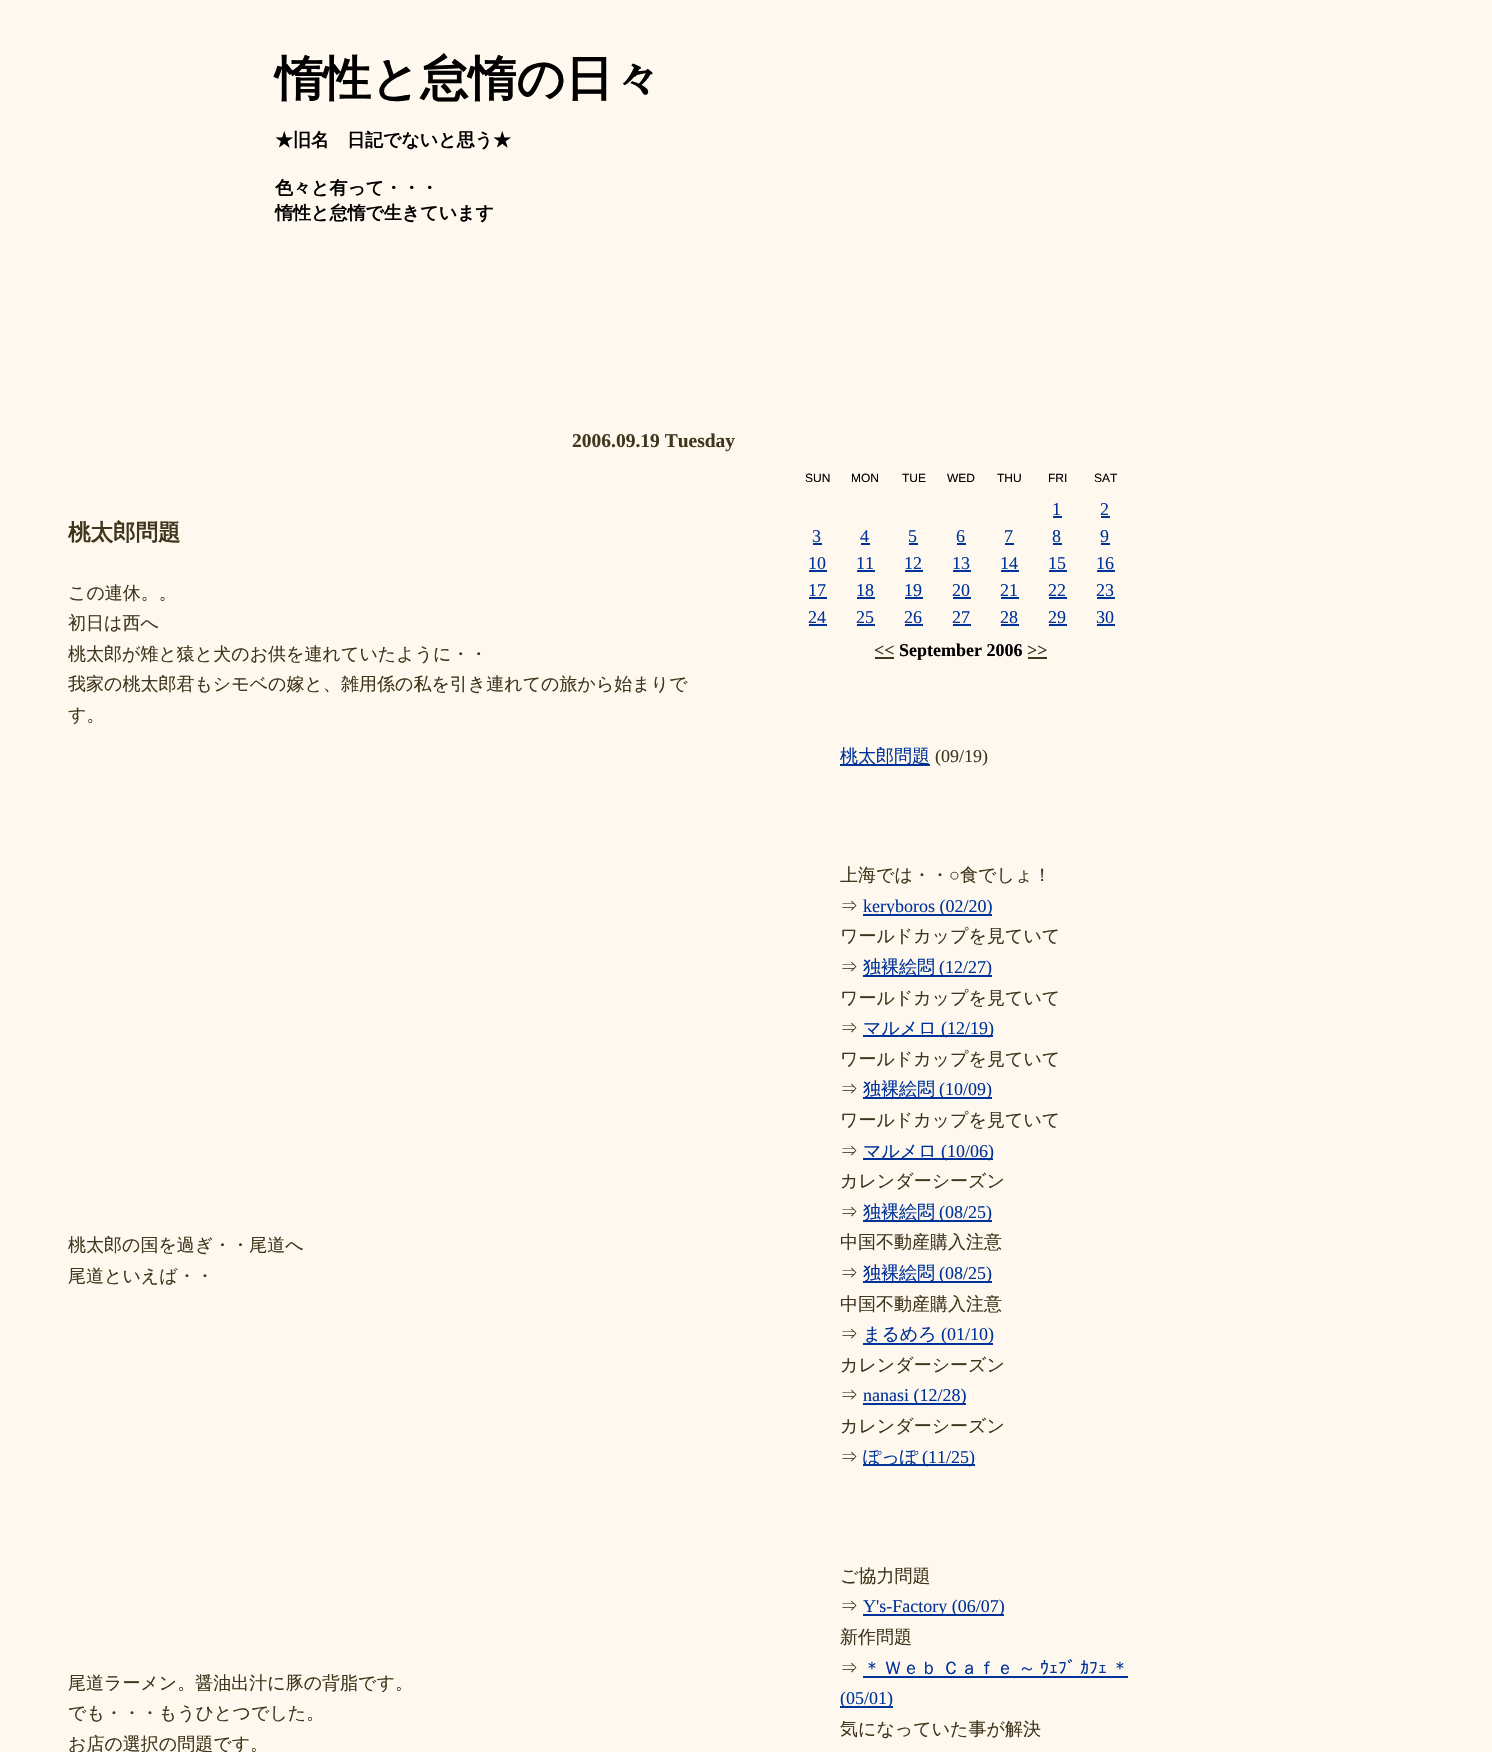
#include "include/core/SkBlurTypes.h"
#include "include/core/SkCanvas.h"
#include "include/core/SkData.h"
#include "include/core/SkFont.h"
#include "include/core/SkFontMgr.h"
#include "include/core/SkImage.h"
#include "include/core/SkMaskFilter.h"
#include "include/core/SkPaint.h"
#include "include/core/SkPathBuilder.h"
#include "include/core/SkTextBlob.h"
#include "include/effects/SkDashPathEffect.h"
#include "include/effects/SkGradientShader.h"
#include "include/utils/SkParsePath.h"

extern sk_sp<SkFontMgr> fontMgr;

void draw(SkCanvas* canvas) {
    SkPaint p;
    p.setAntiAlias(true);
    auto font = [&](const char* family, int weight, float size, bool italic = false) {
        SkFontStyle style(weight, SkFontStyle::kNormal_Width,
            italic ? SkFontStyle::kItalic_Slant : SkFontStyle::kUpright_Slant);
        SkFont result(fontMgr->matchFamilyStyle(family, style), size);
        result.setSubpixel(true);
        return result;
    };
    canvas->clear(0xFFFEF8EE);
    auto font1 = font("WenQuanYi Zen Hei", 700, 48);
    p.setColor(0xFF000000);
    canvas->drawString("惰性と怠惰の日々", 275, 95, font1, p);
    auto font2 = font("WenQuanYi Zen Hei", 700, 18);
    {
        const struct { const char* s; float x, y; } items[] = {
            {"★旧名　日記でないと思う★", 275, 146},
            {"色々と有って・・・", 275, 194},
            {"惰性と怠惰で生きています", 275, 219},
        };
        for (auto [s, x, y] : items) {
            canvas->drawString(s, x, y, font2, p);
        }
    }
    auto font3 = font("Liberation Serif", 700, 19.5f);
    p.setColor(0xFF40361D);
    canvas->drawString("2006.09.19 Tuesday", 572, 447, font3, p);
    auto font4 = font("WenQuanYi Zen Hei", 700, 22.5f);
    canvas->drawString("桃太郎問題", 68, 540, font4, p);
    auto font5 = font("WenQuanYi Zen Hei", 500, 18);
    {
        const struct { const char* s; float x, y; } items[] = {
            {"この連休。。", 68, 599},
            {"初日は西へ", 68, 629},
            {"桃太郎が雉と猿と犬のお供を連れていたように・・", 68, 660},
            {"我家の桃太郎君もシモベの嫁と、雑用係の私を引き連れての旅から始まりで", 68, 690},
            {"す。", 68, 721},
            {"桃太郎の国を過ぎ・・尾道へ", 68, 1251},
            {"尾道といえば・・", 68, 1282},
            {"尾道ラーメン。醤油出汁に豚の背脂です。", 68, 1689},
            {"でも・・・もうひとつでした。", 68, 1719},
            {"お店の選択の問題です。", 68, 1750},
        };
        for (auto [s, x, y] : items) {
            canvas->drawString(s, x, y, font5, p);
        }
    }
    auto font6 = font("Liberation Sans", 400, 12);
    p.setColor(0xFF000000);
    {
        const struct { const char* s; float x, y; } items[] = {
            {"SUN", 805, 482},
            {"MON", 851, 482},
            {"TUE", 902, 482},
            {"WED", 947, 482},
            {"THU", 997, 482},
            {"FRI", 1048, 482},
            {"SAT", 1094, 482},
        };
        for (auto [s, x, y] : items) {
            canvas->drawString(s, x, y, font6, p);
        }
    }
    auto font7 = font("Liberation Serif", 400, 18);
    p.setColor(0xFF003399);
    canvas->drawString("1", 1052, 515, font7, p);
    canvas->drawRect(SkRect::MakeLTRB(1053, 516, 1062, 518), p);
    canvas->drawString("2", 1100, 515, font7, p);
    canvas->drawRect(SkRect::MakeLTRB(1101, 516, 1110, 518), p);
    canvas->drawString("3", 812, 542, font7, p);
    canvas->drawRect(SkRect::MakeLTRB(813, 543, 822, 545), p);
    canvas->drawString("4", 860, 542, font7, p);
    canvas->drawRect(SkRect::MakeLTRB(861, 543, 870, 545), p);
    canvas->drawString("5", 908, 542, font7, p);
    canvas->drawRect(SkRect::MakeLTRB(909, 543, 918, 545), p);
    canvas->drawString("6", 956, 542, font7, p);
    canvas->drawRect(SkRect::MakeLTRB(957, 543, 966, 545), p);
    canvas->drawString("7", 1004, 542, font7, p);
    canvas->drawRect(SkRect::MakeLTRB(1005, 543, 1014, 545), p);
    canvas->drawString("8", 1052, 542, font7, p);
    canvas->drawRect(SkRect::MakeLTRB(1053, 543, 1062, 545), p);
    canvas->drawString("9", 1100, 542, font7, p);
    canvas->drawRect(SkRect::MakeLTRB(1101, 543, 1110, 545), p);
    canvas->drawString("10", 808, 569, font7, p);
    canvas->drawRect(SkRect::MakeLTRB(809, 570, 827, 572), p);
    canvas->drawString("11", 856, 569, font7, p);
    canvas->drawRect(SkRect::MakeLTRB(857, 570, 875, 572), p);
    canvas->drawString("12", 904, 569, font7, p);
    canvas->drawRect(SkRect::MakeLTRB(905, 570, 923, 572), p);
    canvas->drawString("13", 952, 569, font7, p);
    canvas->drawRect(SkRect::MakeLTRB(953, 570, 971, 572), p);
    canvas->drawString("14", 1000, 569, font7, p);
    canvas->drawRect(SkRect::MakeLTRB(1001, 570, 1019, 572), p);
    canvas->drawString("15", 1048, 569, font7, p);
    canvas->drawRect(SkRect::MakeLTRB(1049, 570, 1067, 572), p);
    canvas->drawString("16", 1096, 569, font7, p);
    canvas->drawRect(SkRect::MakeLTRB(1097, 570, 1115, 572), p);
    canvas->drawString("17", 808, 596, font7, p);
    canvas->drawRect(SkRect::MakeLTRB(809, 597, 827, 599), p);
    canvas->drawString("18", 856, 596, font7, p);
    canvas->drawRect(SkRect::MakeLTRB(857, 597, 875, 599), p);
    canvas->drawString("19", 904, 596, font7, p);
    canvas->drawRect(SkRect::MakeLTRB(905, 597, 923, 599), p);
    canvas->drawString("20", 952, 596, font7, p);
    canvas->drawRect(SkRect::MakeLTRB(953, 597, 971, 599), p);
    canvas->drawString("21", 1000, 596, font7, p);
    canvas->drawRect(SkRect::MakeLTRB(1001, 597, 1019, 599), p);
    canvas->drawString("22", 1048, 596, font7, p);
    canvas->drawRect(SkRect::MakeLTRB(1049, 597, 1067, 599), p);
    canvas->drawString("23", 1096, 596, font7, p);
    canvas->drawRect(SkRect::MakeLTRB(1097, 597, 1115, 599), p);
    canvas->drawString("24", 808, 623, font7, p);
    canvas->drawRect(SkRect::MakeLTRB(809, 624, 827, 626), p);
    canvas->drawString("25", 856, 623, font7, p);
    canvas->drawRect(SkRect::MakeLTRB(857, 624, 875, 626), p);
    canvas->drawString("26", 904, 623, font7, p);
    canvas->drawRect(SkRect::MakeLTRB(905, 624, 923, 626), p);
    canvas->drawString("27", 952, 623, font7, p);
    canvas->drawRect(SkRect::MakeLTRB(953, 624, 971, 626), p);
    canvas->drawString("28", 1000, 623, font7, p);
    canvas->drawRect(SkRect::MakeLTRB(1001, 624, 1019, 626), p);
    canvas->drawString("29", 1048, 623, font7, p);
    canvas->drawRect(SkRect::MakeLTRB(1049, 624, 1067, 626), p);
    canvas->drawString("30", 1096, 623, font7, p);
    canvas->drawRect(SkRect::MakeLTRB(1097, 624, 1115, 626), p);
    auto font8 = font("Liberation Serif", 700, 18);
    p.setColor(0xFF40361D);
    canvas->drawString("<<", 874, 656, font8, p);
    canvas->drawRect(SkRect::MakeLTRB(875, 657, 894, 659), p);
    p.setColor(0xFF000000);
    canvas->drawString("September 2006", 899, 656, font8, p);
    p.setColor(0xFF40361D);
    canvas->drawString(">>", 1027, 656, font8, p);
    canvas->drawRect(SkRect::MakeLTRB(1028, 657, 1047, 659), p);
    p.setColor(0xFF003399);
    canvas->drawRect(SkRect::MakeLTRB(840, 764, 930, 766), p);
    canvas->drawString("桃太郎問題", 840, 762, font5, p);
    p.setColor(0xFF40361D);
    canvas->drawString("(09/19)", 935, 762, font7, p);
    canvas->drawString("上海では・・", 840, 881, font5, p);
    canvas->drawString("○", 949, 881, font7, p);
    canvas->drawString("食でしょ！", 960, 881, font5, p);
    canvas->drawString("⇒", 840, 912, font5, p);
    p.setColor(0xFF003399);
    canvas->drawRect(SkRect::MakeLTRB(863, 914, 992, 916), p);
    canvas->drawString("keryboros (02/20)", 863, 912, font7, p);
    p.setColor(0xFF40361D);
    canvas->drawString("ワールドカップを見ていて", 840, 942, font5, p);
    canvas->drawString("⇒", 840, 973, font5, p);
    p.setColor(0xFF003399);
    canvas->drawRect(SkRect::MakeLTRB(863, 975, 992, 977), p);
    canvas->drawString("独裸絵悶", 863, 973, font5, p);
    canvas->drawString("(12/27)", 939, 973, font7, p);
    p.setColor(0xFF40361D);
    canvas->drawString("ワールドカップを見ていて", 840, 1004, font5, p);
    canvas->drawString("⇒", 840, 1034, font5, p);
    p.setColor(0xFF003399);
    canvas->drawRect(SkRect::MakeLTRB(863, 1035, 993, 1037), p);
    canvas->drawString("マルメロ", 863, 1034, font5, p);
    canvas->drawString("(12/19)", 941, 1034, font7, p);
    p.setColor(0xFF40361D);
    canvas->drawString("ワールドカップを見ていて", 840, 1065, font5, p);
    canvas->drawString("⇒", 840, 1095, font5, p);
    p.setColor(0xFF003399);
    canvas->drawRect(SkRect::MakeLTRB(863, 1097, 992, 1099), p);
    canvas->drawString("独裸絵悶", 863, 1095, font5, p);
    canvas->drawString("(10/09)", 939, 1095, font7, p);
    p.setColor(0xFF40361D);
    canvas->drawString("ワールドカップを見ていて", 840, 1126, font5, p);
    canvas->drawString("⇒", 840, 1157, font5, p);
    p.setColor(0xFF003399);
    canvas->drawRect(SkRect::MakeLTRB(863, 1158, 993, 1160), p);
    canvas->drawString("マルメロ", 863, 1157, font5, p);
    canvas->drawString("(10/06)", 941, 1157, font7, p);
    p.setColor(0xFF40361D);
    canvas->drawString("カレンダーシーズン", 840, 1187, font5, p);
    canvas->drawString("⇒", 840, 1218, font5, p);
    p.setColor(0xFF003399);
    canvas->drawRect(SkRect::MakeLTRB(863, 1220, 992, 1222), p);
    canvas->drawString("独裸絵悶", 863, 1218, font5, p);
    canvas->drawString("(08/25)", 939, 1218, font7, p);
    p.setColor(0xFF40361D);
    canvas->drawString("中国不動産購入注意", 840, 1248, font5, p);
    canvas->drawString("⇒", 840, 1279, font5, p);
    p.setColor(0xFF003399);
    canvas->drawRect(SkRect::MakeLTRB(863, 1281, 992, 1283), p);
    canvas->drawString("独裸絵悶", 863, 1279, font5, p);
    canvas->drawString("(08/25)", 939, 1279, font7, p);
    p.setColor(0xFF40361D);
    canvas->drawString("中国不動産購入注意", 840, 1310, font5, p);
    canvas->drawString("⇒", 840, 1340, font5, p);
    p.setColor(0xFF003399);
    canvas->drawString("まるめろ", 863, 1340, font5, p);
    canvas->drawRect(SkRect::MakeLTRB(863, 1343, 993, 1345), p);
    canvas->drawString("(01/10)", 941, 1340, font7, p);
    p.setColor(0xFF40361D);
    canvas->drawString("カレンダーシーズン", 840, 1371, font5, p);
    canvas->drawString("⇒", 840, 1401, font5, p);
    p.setColor(0xFF003399);
    canvas->drawRect(SkRect::MakeLTRB(863, 1403, 966, 1405), p);
    canvas->drawString("nanasi (12/28)", 863, 1401, font7, p);
    p.setColor(0xFF40361D);
    canvas->drawString("カレンダーシーズン", 840, 1432, font5, p);
    canvas->drawString("⇒", 840, 1463, font5, p);
    p.setColor(0xFF003399);
    canvas->drawRect(SkRect::MakeLTRB(863, 1464, 975, 1466), p);
    canvas->drawString("ぽっぽ", 863, 1463, font5, p);
    canvas->drawString("(11/25)", 922, 1463, font7, p);
    p.setColor(0xFF40361D);
    canvas->drawString("ご協力問題", 840, 1582, font5, p);
    canvas->drawString("⇒", 840, 1612, font5, p);
    p.setColor(0xFF003399);
    canvas->drawRect(SkRect::MakeLTRB(863, 1614, 1004, 1616), p);
    canvas->drawString("Y's-Factory (06/07)", 863, 1612, font7, p);
    p.setColor(0xFF40361D);
    canvas->drawString("新作問題", 840, 1643, font5, p);
    canvas->drawString("⇒", 840, 1674, font5, p);
    p.setColor(0xFF003399);
    {
        const struct { const char* s; float x, y; } items[] = {
            {"＊", 863, 1674},
            {"Ｗｅｂ", 884, 1674},
            {"Ｃａｆｅ", 942, 1674},
            {"～", 1018, 1674},
        };
        for (auto [s, x, y] : items) {
            canvas->drawString(s, x, y, font5, p);
        }
    }
    canvas->drawRect(SkRect::MakeLTRB(863, 1676, 1128, 1678), p);
    auto font9 = font("IPAPGothic", 400, 18);
    canvas->drawString("ｳｪﾌﾞ", 1040, 1674, font9, p);
    canvas->drawString("ｶﾌｪ", 1080, 1674, font9, p);
    canvas->drawString("＊", 1111, 1674, font5, p);
    canvas->drawRect(SkRect::MakeLTRB(840, 1706, 893, 1708), p);
    canvas->drawString("(05/01)", 840, 1704, font7, p);
    p.setColor(0xFF40361D);
    canvas->drawString("気になっていた事が解決", 840, 1735, font5, p);
}
